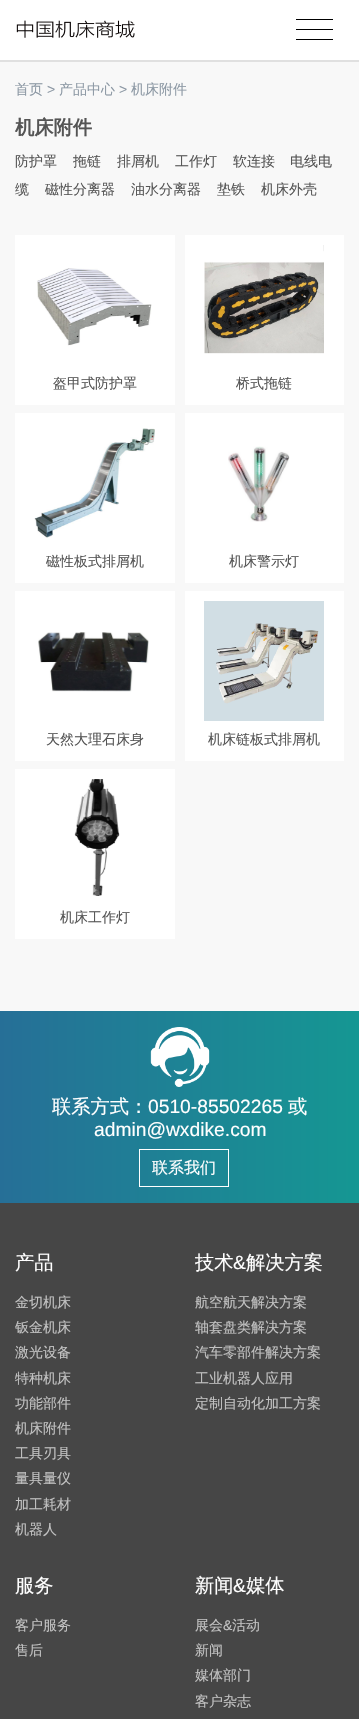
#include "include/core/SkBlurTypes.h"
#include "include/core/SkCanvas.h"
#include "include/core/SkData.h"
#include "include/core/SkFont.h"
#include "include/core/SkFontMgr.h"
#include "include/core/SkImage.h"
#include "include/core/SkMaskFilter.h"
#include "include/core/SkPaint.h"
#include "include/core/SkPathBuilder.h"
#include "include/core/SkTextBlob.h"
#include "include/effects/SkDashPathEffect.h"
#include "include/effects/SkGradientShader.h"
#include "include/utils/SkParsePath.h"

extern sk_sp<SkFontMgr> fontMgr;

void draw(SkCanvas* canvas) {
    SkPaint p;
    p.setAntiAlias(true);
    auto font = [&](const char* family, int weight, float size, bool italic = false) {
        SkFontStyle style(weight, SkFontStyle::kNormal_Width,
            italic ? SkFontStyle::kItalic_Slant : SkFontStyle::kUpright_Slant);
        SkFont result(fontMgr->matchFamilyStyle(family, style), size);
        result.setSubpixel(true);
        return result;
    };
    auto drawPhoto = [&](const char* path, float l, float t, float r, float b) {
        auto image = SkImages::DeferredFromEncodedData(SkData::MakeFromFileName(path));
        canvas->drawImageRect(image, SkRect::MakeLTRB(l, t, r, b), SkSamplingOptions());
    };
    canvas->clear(0xFFFFFFFF);
    drawPhoto("media/1.png", 16, 20, 135, 38);
    {
        const struct { float l, t, r, b; SkColor color; } items[] = {
            {296, 19, 333, 20, 0xFF000000},
            {296, 29, 333, 30, 0xFF000000},
            {296, 39, 333, 40, 0xFF000000},
            {0, 60, 359, 62, 0xFFE0E0E0},
            {0, 62, 359, 1011, 0xFFF8F8F8},
        };
        for (auto [l, t, r, b, color] : items) {
            p.setColor(color);
            canvas->drawRect(SkRect::MakeLTRB(l, t, r, b), p);
        }
    }
    auto font1 = font("WenQuanYi Zen Hei", 500, 14);
    p.setColor(0xFF8C98A4);
    canvas->drawString("首页", 15, 94, font1, p);
    auto font2 = font("Liberation Sans", 400, 14);
    canvas->drawString(">", 47, 94, font2, p);
    canvas->drawString("产品中心", 59, 94, font1, p);
    canvas->drawString(">", 119, 94, font2, p);
    canvas->drawString("机床附件", 131, 94, font1, p);
    auto font3 = font("WenQuanYi Zen Hei", 700, 19.25f);
    p.setColor(0xFF555555);
    canvas->drawString("机床附件", 15, 134, font3, p);
    {
        const struct { const char* s; float x, y; } items[] = {
            {"防护罩", 15, 166},
            {"拖链", 73, 166},
            {"排屑机", 117, 166},
            {"工作灯", 175, 166},
            {"软连接", 233, 166},
            {"电线电", 290, 166},
            {"缆", 15, 194},
            {"磁性分离器", 45, 194},
            {"油水分离器", 131, 194},
            {"垫铁", 217, 194},
            {"机床外壳", 261, 194},
        };
        for (auto [s, x, y] : items) {
            canvas->drawString(s, x, y, font1, p);
        }
    }
    p.setColor(0xFFFFFFFF);
    canvas->drawRect(SkRect::MakeLTRB(15, 235, 175, 405), p);
    drawPhoto("media/2.png", 37, 268, 152, 346);
    p.setColor(0xFF555555);
    canvas->drawString("盔甲式防护罩", 53, 388, font1, p);
    p.setColor(0xFFFFFFFF);
    canvas->drawRect(SkRect::MakeLTRB(185, 235, 344, 405), p);
    drawPhoto("media/3.png", 204, 245, 324, 354);
    p.setColor(0xFF555555);
    canvas->drawString("桥式拖链", 236, 388, font1, p);
    p.setColor(0xFFFFFFFF);
    canvas->drawRect(SkRect::MakeLTRB(15, 413, 175, 583), p);
    drawPhoto("media/4.png", 34, 428, 155, 538);
    p.setColor(0xFF555555);
    canvas->drawString("磁性板式排屑机", 46, 566, font1, p);
    p.setColor(0xFFFFFFFF);
    canvas->drawRect(SkRect::MakeLTRB(185, 413, 344, 583), p);
    drawPhoto("media/5.png", 228, 446, 290, 522);
    p.setColor(0xFF555555);
    canvas->drawString("机床警示灯", 229, 566, font1, p);
    p.setColor(0xFFFFFFFF);
    canvas->drawRect(SkRect::MakeLTRB(15, 591, 175, 761), p);
    drawPhoto("media/6.png", 38, 632, 149, 692);
    p.setColor(0xFF555555);
    canvas->drawString("天然大理石床身", 46, 744, font1, p);
    p.setColor(0xFFFFFFFF);
    canvas->drawRect(SkRect::MakeLTRB(185, 591, 344, 761), p);
    drawPhoto("media/7.png", 204, 601, 324, 721);
    p.setColor(0xFF555555);
    canvas->drawString("机床链板式排屑机", 208, 744, font1, p);
    p.setColor(0xFFFFFFFF);
    canvas->drawRect(SkRect::MakeLTRB(15, 769, 175, 939), p);
    drawPhoto("media/8.png", 74, 779, 120, 896);
    p.setColor(0xFF555555);
    canvas->drawString("机床工作灯", 60, 922, font1, p);
    {
        const SkColor colors[] = {0xFF266F97, 0xFF159793};
        const float stops[] = {0, 1};
        const SkPoint ends[] = {{0, 1107}, {359, 1107}};
        p.setShader(SkGradientShader::MakeLinear(ends, colors, stops, 2, SkTileMode::kClamp));
        p.setAlpha(255);
    }
    canvas->drawRect(SkRect::MakeLTRB(0, 1011, 359, 1203), p);
    drawPhoto("media/9.png", 150, 1027, 210, 1087);
    auto font4 = font("WenQuanYi Zen Hei", 500, 19.25f);
    p.setShader(nullptr);
    p.setColor(0xFFFFFFFF);
    canvas->drawString("联系方式：", 52, 1113, font4, p);
    auto font5 = font("Liberation Sans", 400, 19.25f);
    canvas->drawString("0510-85502265", 148, 1113, font5, p);
    canvas->drawString("或", 288, 1113, font4, p);
    canvas->drawString("admin@wxdike.com", 94, 1136, font5, p);
    p.setStyle(SkPaint::kStroke_Style);
    p.setStrokeWidth(1);
    canvas->drawRect(SkRect::MakeLTRB(139.5f, 1149.5f, 228.5f, 1186.5f), p);
    auto font6 = font("WenQuanYi Zen Hei", 500, 16);
    p.setStyle(SkPaint::kFill_Style);
    canvas->drawString("联系我们", 152, 1173, font6, p);
    p.setColor(0xFF464646);
    canvas->drawRect(SkRect::MakeLTRB(0, 1203, 359, 1719), p);
    p.setColor(0xFFFFFFFF);
    canvas->drawString("产品", 15, 1269, font4, p);
    p.setColor(0xFFC2C2C2);
    {
        const struct { const char* s; float x, y; } items[] = {
            {"金切机床", 15, 1307},
            {"钣金机床", 15, 1332},
            {"激光设备", 15, 1357},
            {"特种机床", 15, 1383},
            {"功能部件", 15, 1408},
            {"机床附件", 15, 1433},
            {"工具刃具", 15, 1458},
            {"量具量仪", 15, 1483},
            {"加工耗材", 15, 1509},
            {"机器人", 15, 1534},
        };
        for (auto [s, x, y] : items) {
            canvas->drawString(s, x, y, font1, p);
        }
    }
    p.setColor(0xFFFFFFFF);
    canvas->drawString("技术", 195, 1269, font4, p);
    canvas->drawString("&", 233, 1269, font5, p);
    canvas->drawString("解决方案", 246, 1269, font4, p);
    p.setColor(0xFFC2C2C2);
    {
        const struct { const char* s; float x, y; } items[] = {
            {"航空航天解决方案", 195, 1307},
            {"轴套盘类解决方案", 195, 1332},
            {"汽车零部件解决方案", 195, 1357},
            {"工业机器人应用", 195, 1383},
            {"定制自动化加工方案", 195, 1408},
        };
        for (auto [s, x, y] : items) {
            canvas->drawString(s, x, y, font1, p);
        }
    }
    p.setColor(0xFFFFFFFF);
    canvas->drawString("服务", 15, 1592, font4, p);
    p.setColor(0xFFC2C2C2);
    canvas->drawString("客户服务", 15, 1630, font1, p);
    canvas->drawString("售后", 15, 1655, font1, p);
    p.setColor(0xFFFFFFFF);
    canvas->drawString("新闻", 195, 1592, font4, p);
    canvas->drawString("&", 233, 1592, font5, p);
    canvas->drawString("媒体", 246, 1592, font4, p);
    p.setColor(0xFFC2C2C2);
    canvas->drawString("展会", 195, 1630, font1, p);
    canvas->drawString("&", 223, 1630, font2, p);
    {
        const struct { const char* s; float x, y; } items[] = {
            {"活动", 232, 1630},
            {"新闻", 195, 1655},
            {"媒体部门", 195, 1680},
            {"客户杂志", 195, 1706},
        };
        for (auto [s, x, y] : items) {
            canvas->drawString(s, x, y, font1, p);
        }
    }
}
